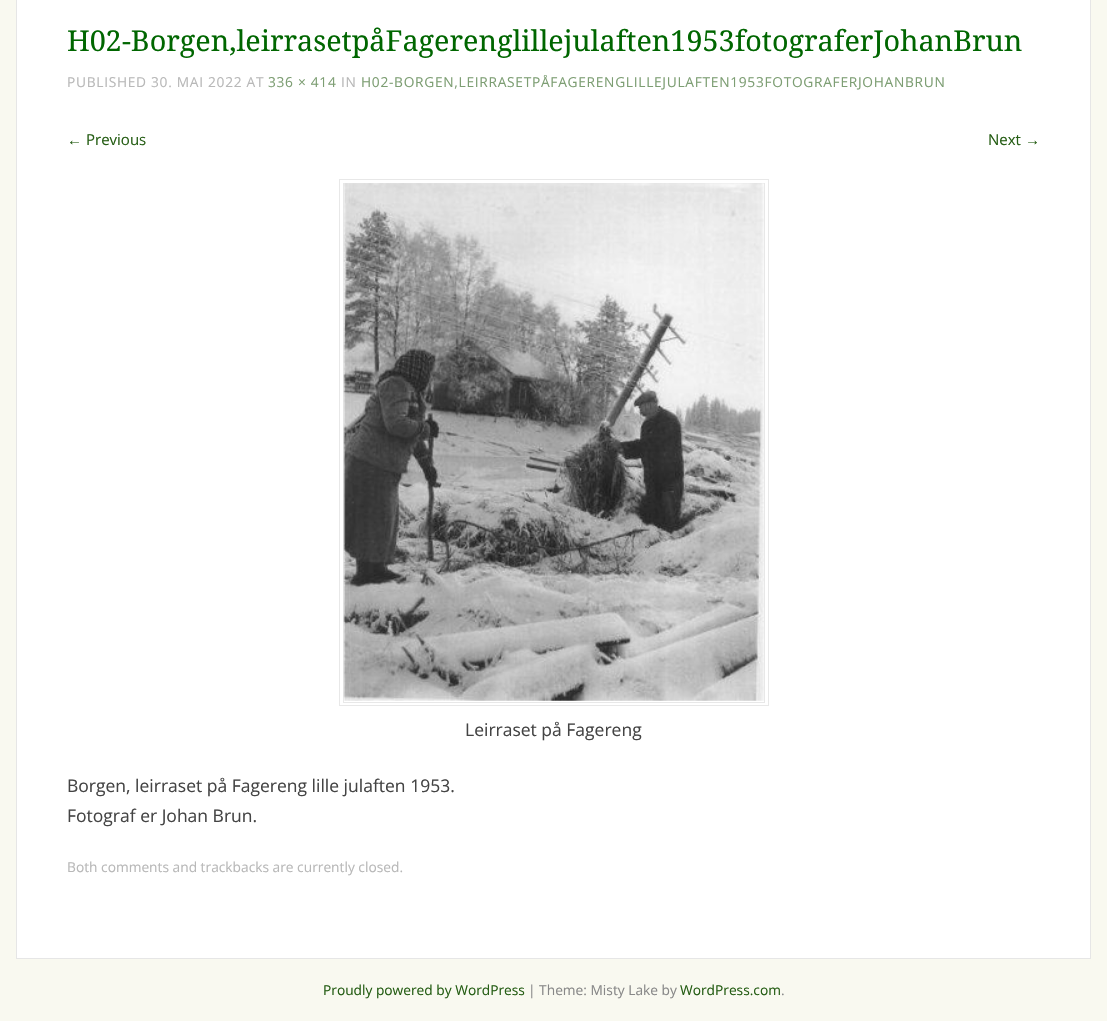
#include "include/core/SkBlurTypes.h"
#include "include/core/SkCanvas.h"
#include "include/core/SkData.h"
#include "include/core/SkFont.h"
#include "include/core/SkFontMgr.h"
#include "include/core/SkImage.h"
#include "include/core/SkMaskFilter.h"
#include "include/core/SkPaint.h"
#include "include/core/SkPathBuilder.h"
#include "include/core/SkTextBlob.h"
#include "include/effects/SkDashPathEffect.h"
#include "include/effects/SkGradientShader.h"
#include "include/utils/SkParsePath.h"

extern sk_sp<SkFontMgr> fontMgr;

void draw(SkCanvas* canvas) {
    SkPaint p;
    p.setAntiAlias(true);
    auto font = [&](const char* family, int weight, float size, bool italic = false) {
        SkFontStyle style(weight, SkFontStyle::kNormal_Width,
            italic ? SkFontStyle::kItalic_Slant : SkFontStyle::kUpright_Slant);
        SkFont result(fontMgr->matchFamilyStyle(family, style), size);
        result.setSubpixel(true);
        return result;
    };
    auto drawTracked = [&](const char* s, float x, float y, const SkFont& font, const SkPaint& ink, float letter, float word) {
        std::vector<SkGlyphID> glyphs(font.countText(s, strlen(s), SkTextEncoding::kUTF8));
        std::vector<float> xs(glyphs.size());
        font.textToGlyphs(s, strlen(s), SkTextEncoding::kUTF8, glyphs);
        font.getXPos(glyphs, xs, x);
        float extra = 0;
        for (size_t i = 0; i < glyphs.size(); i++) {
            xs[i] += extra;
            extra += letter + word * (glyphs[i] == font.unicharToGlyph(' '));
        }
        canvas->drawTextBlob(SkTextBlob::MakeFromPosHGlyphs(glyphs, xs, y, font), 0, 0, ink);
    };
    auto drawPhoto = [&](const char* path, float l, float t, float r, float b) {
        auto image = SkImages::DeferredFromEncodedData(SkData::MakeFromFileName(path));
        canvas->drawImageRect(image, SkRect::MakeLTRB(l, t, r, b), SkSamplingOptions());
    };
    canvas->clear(0xFFF9F9F0);
    p.setColor(0xFFFFFFFF);
    canvas->drawRect(SkRect::MakeLTRB(16.5f, -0.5f, 1090.5f, 958.5f), p);
    p.setStyle(SkPaint::kStroke_Style);
    p.setStrokeWidth(1);
    p.setColor(0xFFE6E6E6);
    canvas->drawRect(SkRect::MakeLTRB(16.5f, -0.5f, 1090.5f, 958.5f), p);
    auto font1 = font("Droid Serif", 400, 28.75f);
    p.setStyle(SkPaint::kFill_Style);
    p.setColor(0xFF006600);
    canvas->drawString("H02-Borgen,leirrasetpåFagerenglillejulaften1953fotograferJohanBrun", 67, 51, font1, p);
    auto font2 = font("Open Sans", 400, 13.75f);
    p.setColor(0xFFB8B8B8);
    drawTracked("PUBLISHED 30. MAI 2022 AT", 67, 87, font2, p, 0.7f, 0);
    p.setColor(0xFF7D9E73);
    drawTracked("336 × 414", 268, 87, font2, p, 0.7f, 0);
    p.setColor(0xFFB8B8B8);
    drawTracked("IN", 341, 87, font2, p, 0.7f, 0);
    p.setColor(0xFF7D9E73);
    drawTracked("H02-BORGEN,LEIRRASETPÅFAGERENGLILLEJULAFTEN1953FOTOGRAFERJOHANBRUN", 361, 87, font2, p, 0.7f, 0);
    auto font3 = font("Liberation Sans", 400, 15);
    p.setColor(0xFF265E15);
    canvas->drawString("←", 67, 145, font3, p);
    auto font4 = font("Open Sans", 400, 15);
    canvas->drawString("Previous", 86, 145, font4, p);
    canvas->drawString("Next", 988, 145, font4, p);
    canvas->drawString("→", 1025, 145, font3, p);
    p.setStyle(SkPaint::kStroke_Style);
    p.setColor(0xFFE8E8E8);
    canvas->drawRect(SkRect::MakeLTRB(339.5f, 179.5f, 768.5f, 705.5f), p);
    canvas->drawRect(SkRect::MakeLTRB(343.5f, 183.5f, 764.5f, 702.5f), p);
    drawPhoto("media/1.png", 343, 183, 764, 701);
    auto font5 = font("Open Sans", 400, 17.5f);
    p.setStyle(SkPaint::kFill_Style);
    p.setColor(0xFF444444);
    {
        const struct { const char* s; float x, y; } items[] = {
            {"Leirraset på Fagereng", 465, 736},
            {"Borgen, leirraset på Fagereng lille julaften 1953.", 67, 792},
            {"Fotograf er Johan Brun.", 67, 822},
        };
        for (auto [s, x, y] : items) {
            canvas->drawString(s, x, y, font5, p);
        }
    }
    p.setColor(0xFFB8B8B8);
    canvas->drawString("Both comments and trackbacks are currently closed.", 67, 872, font2, p);
    p.setColor(0xFF265E15);
    canvas->drawString("Proudly powered by WordPress", 323, 995, font2, p);
    p.setColor(0xFF888888);
    canvas->drawString("| Theme: Misty Lake by", 528, 995, font2, p);
    p.setColor(0xFF265E15);
    canvas->drawString("WordPress.com", 680, 995, font2, p);
    p.setColor(0xFF888888);
    canvas->drawString(".", 781, 995, font2, p);
}
